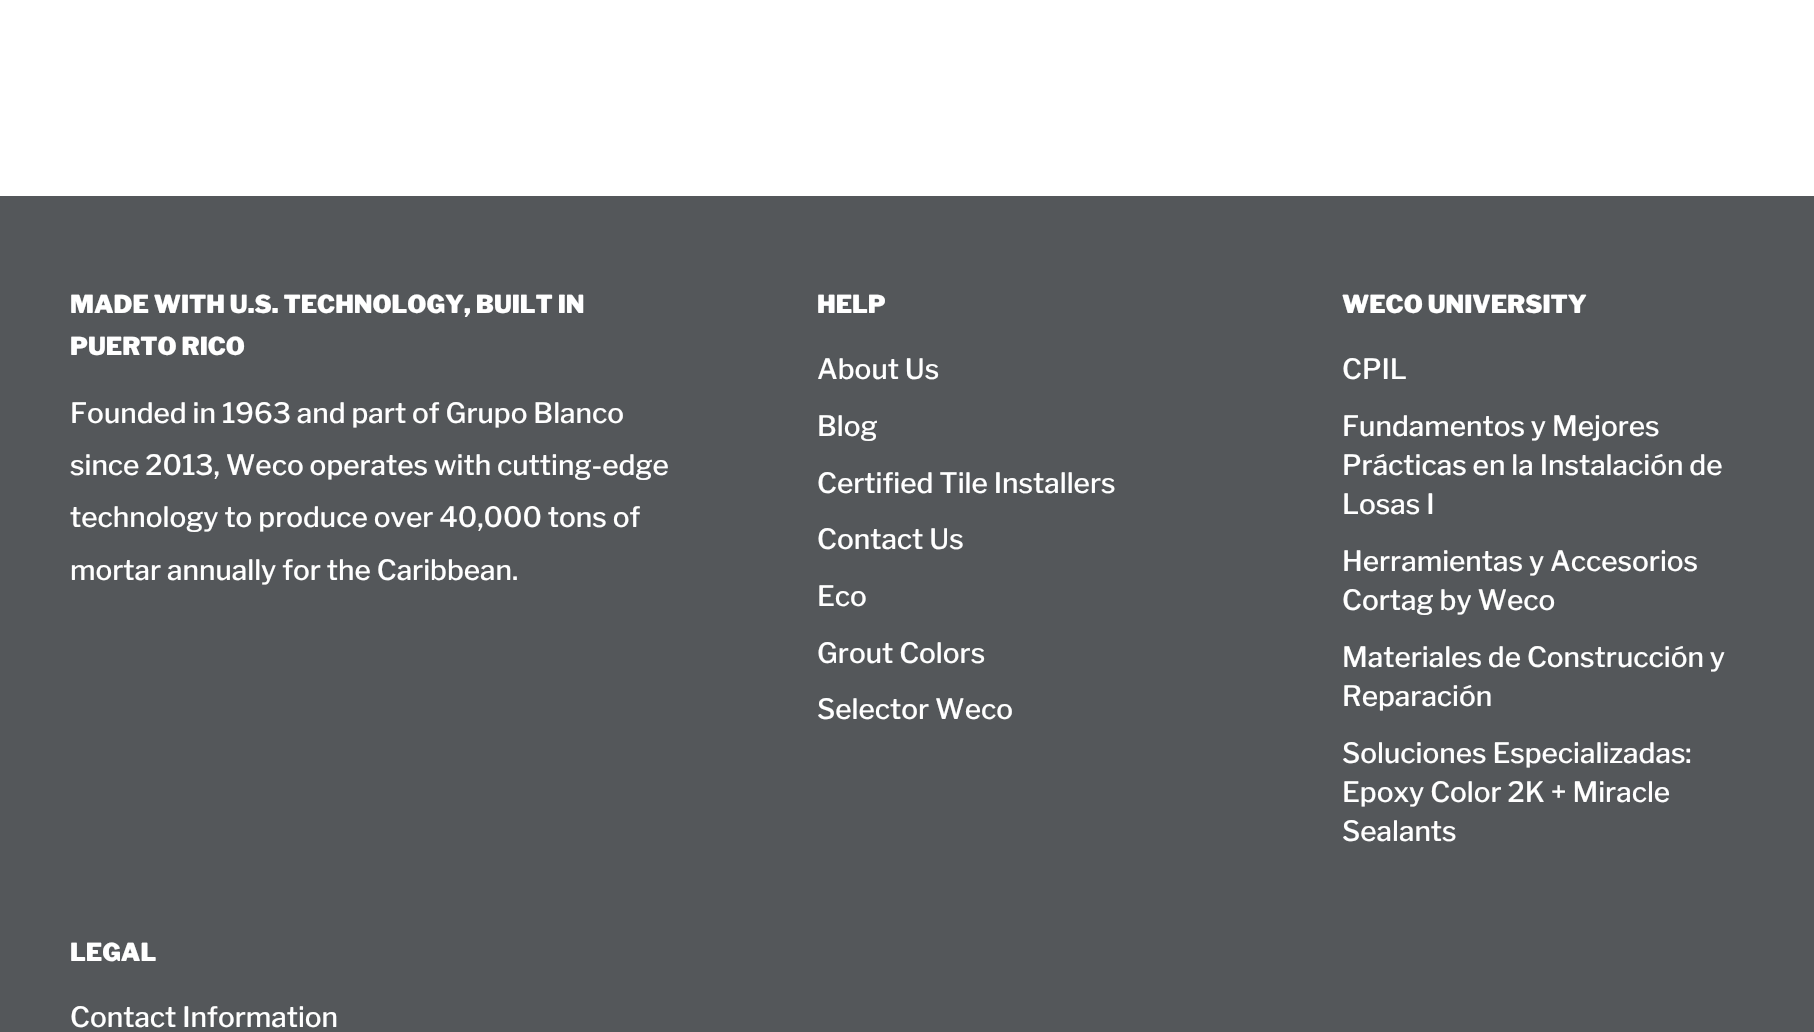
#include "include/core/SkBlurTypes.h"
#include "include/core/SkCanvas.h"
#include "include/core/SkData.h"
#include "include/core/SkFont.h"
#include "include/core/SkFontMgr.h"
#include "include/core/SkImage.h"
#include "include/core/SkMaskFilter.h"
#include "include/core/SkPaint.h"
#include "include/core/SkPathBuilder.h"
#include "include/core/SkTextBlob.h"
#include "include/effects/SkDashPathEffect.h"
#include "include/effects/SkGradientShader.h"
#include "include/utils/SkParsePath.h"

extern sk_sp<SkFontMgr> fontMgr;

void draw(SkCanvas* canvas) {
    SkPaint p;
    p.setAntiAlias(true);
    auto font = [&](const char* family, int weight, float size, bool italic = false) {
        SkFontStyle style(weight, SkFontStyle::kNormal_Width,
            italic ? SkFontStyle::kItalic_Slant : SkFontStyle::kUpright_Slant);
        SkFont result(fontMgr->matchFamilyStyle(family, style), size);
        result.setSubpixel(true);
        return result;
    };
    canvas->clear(0xFFFFFFFF);
    p.setColor(0xFF54575A);
    canvas->drawRect(SkRect::MakeLTRB(0, 196, 1814, 1032), p);
    auto font1 = font("Libre Franklin", 900, 24.5f);
    p.setColor(0xFFFFFFFF);
    canvas->drawString("MADE WITH U.S. TECHNOLOGY, BUILT IN", 70, 313, font1, p);
    canvas->drawString("PUERTO RICO", 70, 355, font1, p);
    auto font2 = font("Libre Franklin", 500, 28);
    {
        const struct { const char* s; float x, y; } items[] = {
            {"Founded in 1963 and part of Grupo Blanco", 70, 423},
            {"since 2013, Weco operates with cutting-edge", 70, 475},
            {"technology to produce over 40,000 tons of", 70, 527},
            {"mortar annually for the Caribbean.", 70, 580},
        };
        for (auto [s, x, y] : items) {
            canvas->drawString(s, x, y, font2, p);
        }
    }
    canvas->drawString("HELP", 817, 313, font1, p);
    {
        const struct { const char* s; float x, y; } items[] = {
            {"About Us", 817, 379},
            {"Blog", 817, 436},
            {"Certified Tile Installers", 817, 493},
            {"Contact Us", 817, 549},
            {"Eco", 817, 606},
            {"Grout Colors", 817, 663},
            {"Selector Weco", 817, 719},
        };
        for (auto [s, x, y] : items) {
            canvas->drawString(s, x, y, font2, p);
        }
    }
    canvas->drawString("WECO UNIVERSITY", 1342, 313, font1, p);
    {
        const struct { const char* s; float x, y; } items[] = {
            {"CPIL", 1342, 379},
            {"Fundamentos y Mejores", 1342, 436},
            {"Prácticas en la Instalación de", 1342, 475},
            {"Losas I", 1342, 514},
            {"Herramientas y Accesorios", 1342, 571},
            {"Cortag by Weco", 1342, 610},
            {"Materiales de Construcción y", 1342, 667},
            {"Reparación", 1342, 706},
            {"Soluciones Especializadas:", 1342, 763},
            {"Epoxy Color 2K + Miracle", 1342, 802},
            {"Sealants", 1342, 841},
        };
        for (auto [s, x, y] : items) {
            canvas->drawString(s, x, y, font2, p);
        }
    }
    canvas->drawString("LEGAL", 70, 961, font1, p);
    canvas->drawString("Contact Information", 70, 1027, font2, p);
}
